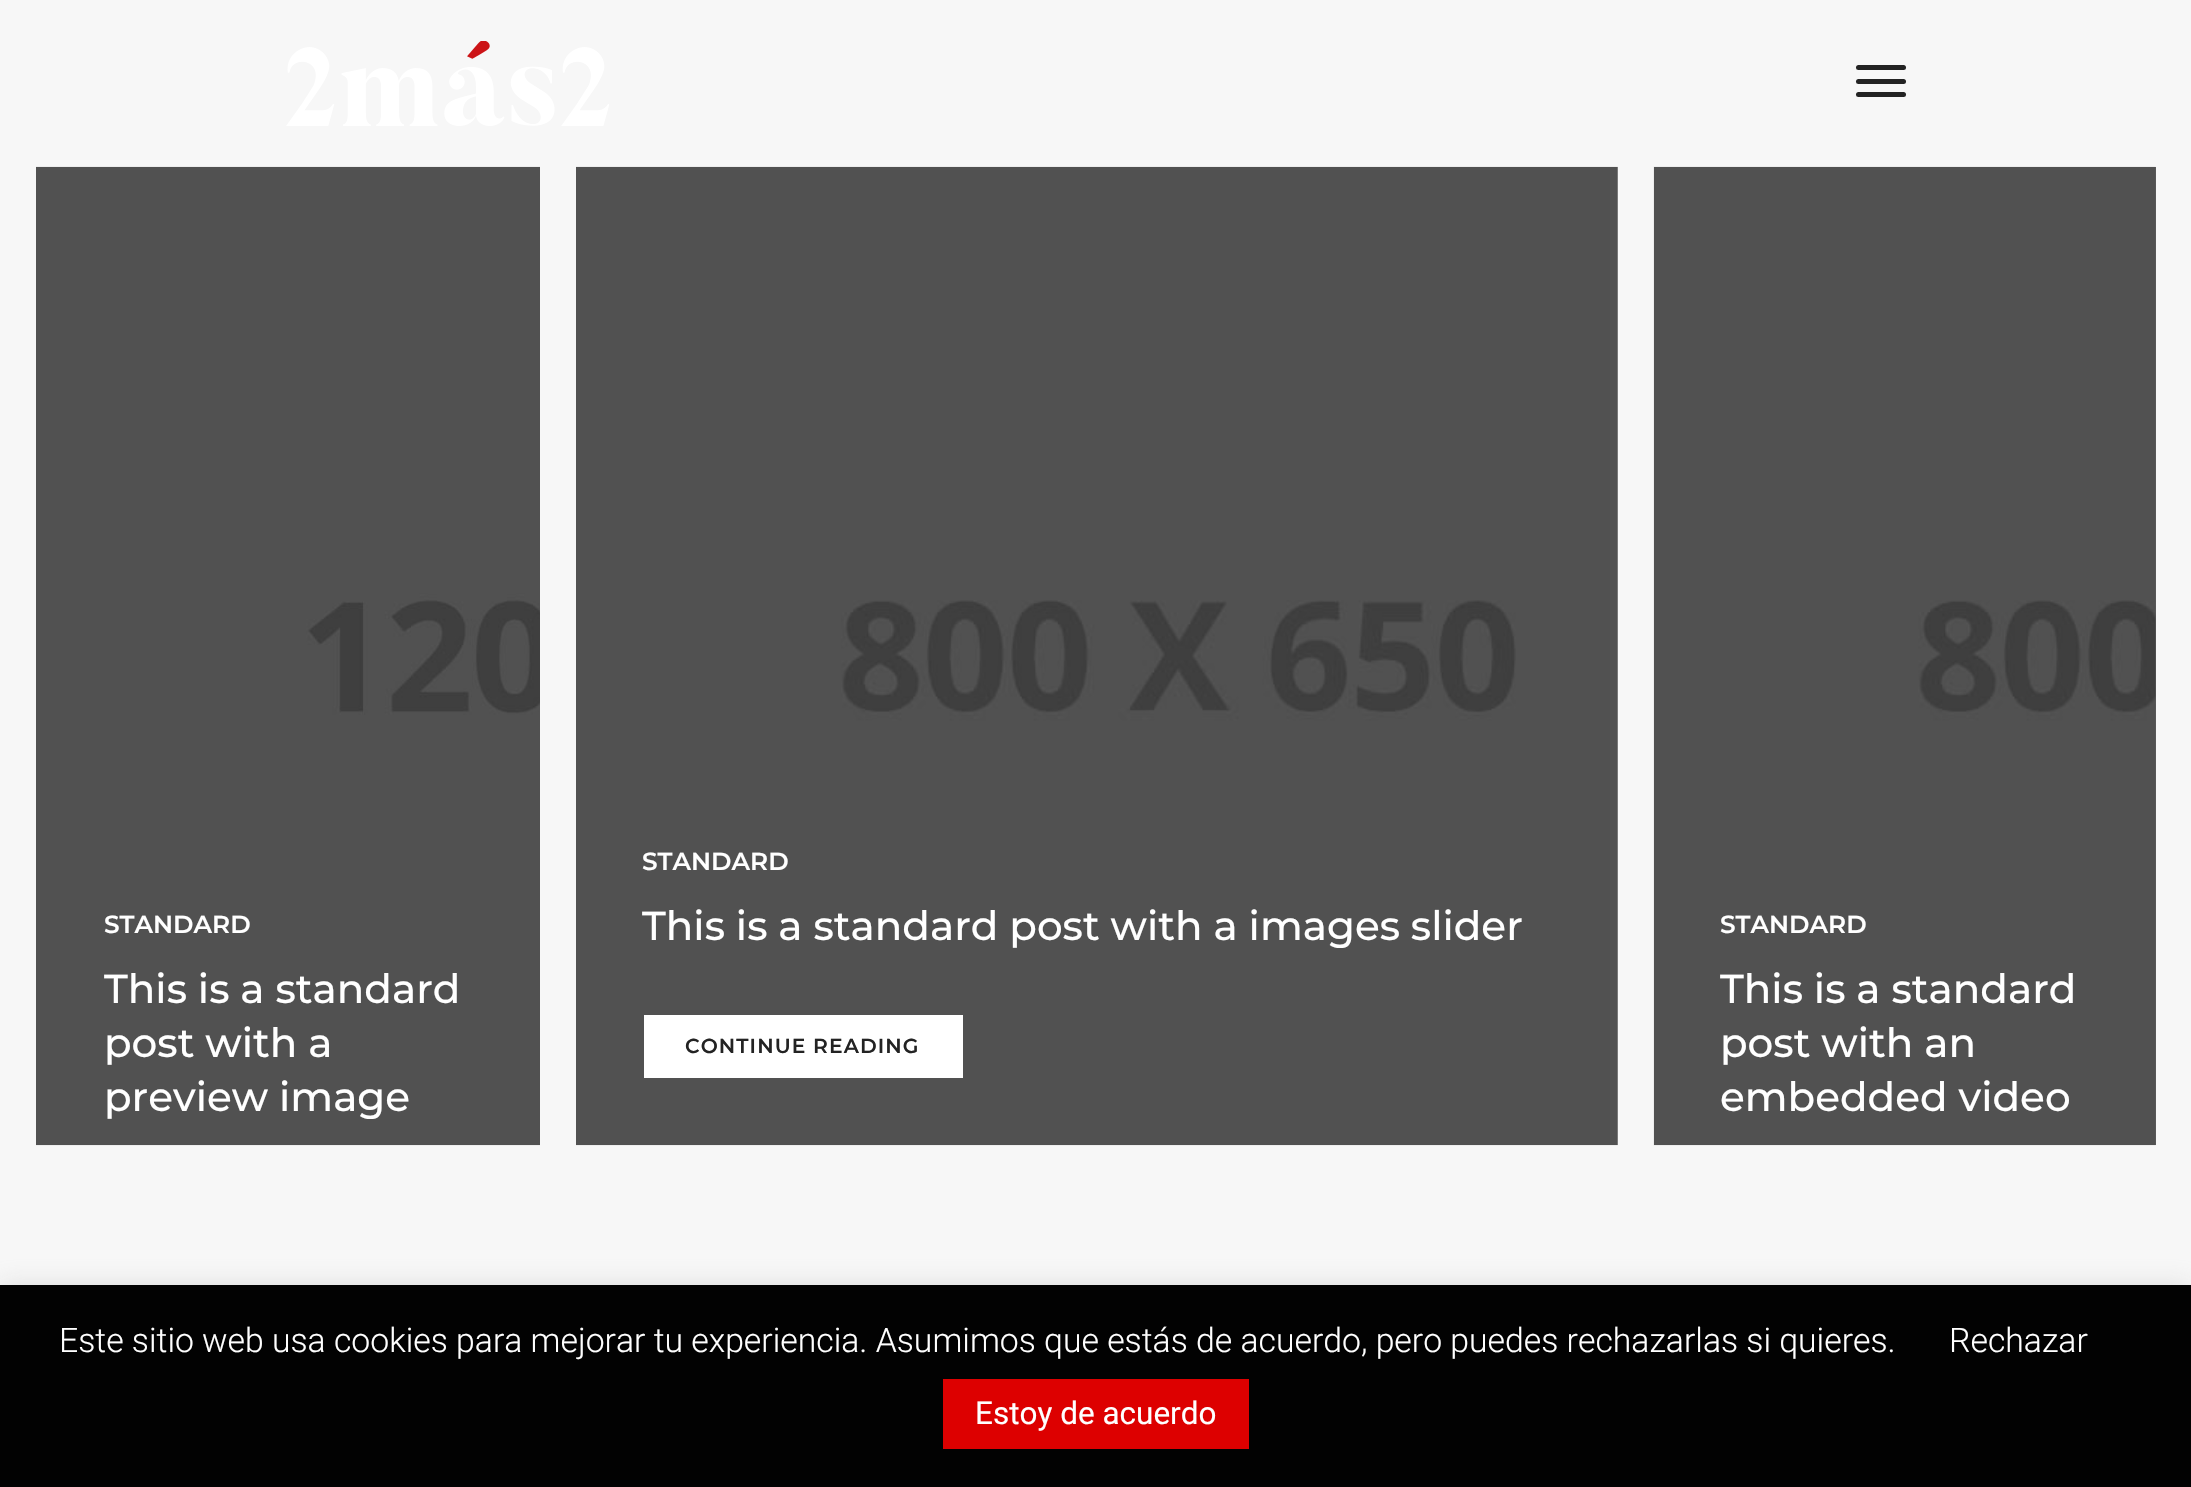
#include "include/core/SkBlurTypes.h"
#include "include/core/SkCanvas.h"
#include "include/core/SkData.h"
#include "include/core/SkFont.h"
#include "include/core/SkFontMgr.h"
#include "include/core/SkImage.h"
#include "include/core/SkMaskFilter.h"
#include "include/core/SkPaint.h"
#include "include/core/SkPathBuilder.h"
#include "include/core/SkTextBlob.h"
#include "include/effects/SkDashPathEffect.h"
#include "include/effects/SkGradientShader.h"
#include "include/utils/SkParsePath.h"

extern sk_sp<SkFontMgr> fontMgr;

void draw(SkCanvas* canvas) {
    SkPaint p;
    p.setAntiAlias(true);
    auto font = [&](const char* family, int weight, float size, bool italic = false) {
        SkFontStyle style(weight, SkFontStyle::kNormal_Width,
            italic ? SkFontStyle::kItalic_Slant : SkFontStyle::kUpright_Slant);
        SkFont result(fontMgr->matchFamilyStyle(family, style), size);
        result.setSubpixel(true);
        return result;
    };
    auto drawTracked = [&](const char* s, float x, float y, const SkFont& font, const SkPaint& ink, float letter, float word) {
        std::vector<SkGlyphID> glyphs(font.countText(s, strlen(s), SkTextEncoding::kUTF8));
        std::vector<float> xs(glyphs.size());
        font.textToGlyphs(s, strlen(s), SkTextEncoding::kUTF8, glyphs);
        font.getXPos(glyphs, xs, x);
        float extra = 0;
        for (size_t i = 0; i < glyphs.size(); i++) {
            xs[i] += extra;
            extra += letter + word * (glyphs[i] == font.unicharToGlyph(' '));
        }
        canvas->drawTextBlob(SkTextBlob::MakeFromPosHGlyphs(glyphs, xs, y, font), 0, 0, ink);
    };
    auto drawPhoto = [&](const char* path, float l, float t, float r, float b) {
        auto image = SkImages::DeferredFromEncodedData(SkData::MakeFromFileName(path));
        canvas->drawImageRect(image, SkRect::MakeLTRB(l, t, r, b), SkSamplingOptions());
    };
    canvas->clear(0xFFF7F7F7);
    p.setColor(0xFF5E5E5E);
    canvas->drawRect(SkRect::MakeLTRB(2155, 167, 2156, 1145), p);
    drawPhoto("media/1.png", 286, 41, 609, 126);
    p.setColor(0xFF232323);
    canvas->drawRoundRect(SkRect::MakeLTRB(1856, 65, 1906, 70), 2.5f, 2.5f, p);
    canvas->drawRoundRect(SkRect::MakeLTRB(1856, 79, 1906, 84), 2.5f, 2.5f, p);
    canvas->drawRoundRect(SkRect::MakeLTRB(1856, 92, 1906, 97), 2.5f, 2.5f, p);
    drawPhoto("media/2.png", 36, 166, 540, 1146);
    auto font1 = font("Montserrat", 600, 24.75f);
    p.setColor(0xFFFFFFFF);
    canvas->drawString("STANDARD", 104, 933, font1, p);
    auto font2 = font("Montserrat", 500, 40.5f);
    {
        const struct { const char* s; float x, y; } items[] = {
            {"This is a standard", 104, 1003},
            {"post with a", 104, 1057},
            {"preview image", 104, 1111},
        };
        for (auto [s, x, y] : items) {
            canvas->drawString(s, x, y, font2, p);
        }
    }
    drawPhoto("media/3.png", 576, 166, 1618, 1146);
    canvas->drawString("STANDARD", 642, 870, font1, p);
    canvas->drawString("This is a standard post with a images slider", 642, 940, font2, p);
    canvas->drawRect(SkRect::MakeLTRB(644, 1015, 963, 1078), p);
    auto font3 = font("Montserrat", 600, 20.25f);
    p.setColor(0xFF232323);
    drawTracked("CONTINUE READING", 685, 1053, font3, p, 1.1f, 0);
    drawPhoto("media/4.png", 1653, 166, 2156, 1146);
    p.setColor(0xFFFFFFFF);
    canvas->drawString("STANDARD", 1720, 933, font1, p);
    {
        const struct { const char* s; float x, y; } items[] = {
            {"This is a standard", 1720, 1003},
            {"post with an", 1720, 1057},
            {"embedded video", 1720, 1111},
        };
        for (auto [s, x, y] : items) {
            canvas->drawString(s, x, y, font2, p);
        }
    }
    p.setColor(0x4DACABAB);
    p.setMaskFilter(SkMaskFilter::MakeBlur(kNormal_SkBlurStyle, 11));
    canvas->drawRect(SkRect::MakeLTRB(0, 1283, 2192, 1485), p);
    p.setMaskFilter(nullptr);
    p.setColor(0xFF020202);
    canvas->drawRect(SkRect::MakeLTRB(0, 1285, 2191, 1487), p);
    auto font4 = font("Roboto", 300, 33.75f);
    p.setColor(0xFFFFFFFF);
    canvas->drawString("Este sitio web usa cookies para mejorar tu experiencia. Asumimos que estás de acuerdo, pero puedes rechazarlas si quieres.", 59, 1352, font4, p);
    canvas->drawString("Rechazar", 1949, 1352, font4, p);
    p.setColor(0xFFDD0000);
    canvas->drawRect(SkRect::MakeLTRB(943, 1379, 1249, 1449), p);
    auto font5 = font("Roboto", 400, 31.5f);
    p.setColor(0xFFFFFFFF);
    canvas->drawString("Estoy de acuerdo", 975, 1424, font5, p);
}
